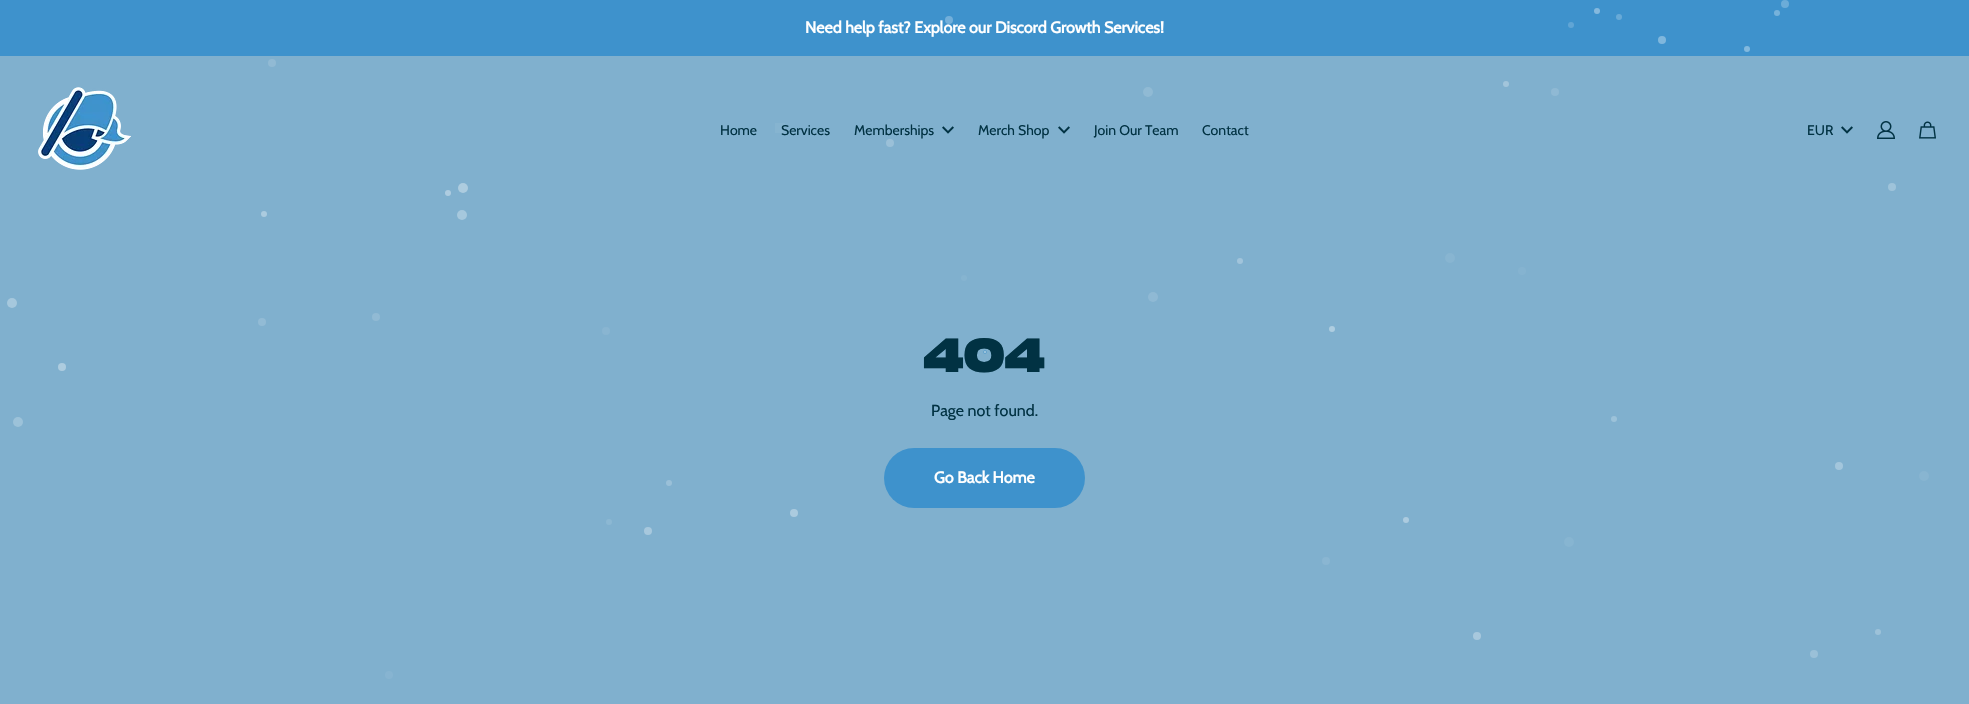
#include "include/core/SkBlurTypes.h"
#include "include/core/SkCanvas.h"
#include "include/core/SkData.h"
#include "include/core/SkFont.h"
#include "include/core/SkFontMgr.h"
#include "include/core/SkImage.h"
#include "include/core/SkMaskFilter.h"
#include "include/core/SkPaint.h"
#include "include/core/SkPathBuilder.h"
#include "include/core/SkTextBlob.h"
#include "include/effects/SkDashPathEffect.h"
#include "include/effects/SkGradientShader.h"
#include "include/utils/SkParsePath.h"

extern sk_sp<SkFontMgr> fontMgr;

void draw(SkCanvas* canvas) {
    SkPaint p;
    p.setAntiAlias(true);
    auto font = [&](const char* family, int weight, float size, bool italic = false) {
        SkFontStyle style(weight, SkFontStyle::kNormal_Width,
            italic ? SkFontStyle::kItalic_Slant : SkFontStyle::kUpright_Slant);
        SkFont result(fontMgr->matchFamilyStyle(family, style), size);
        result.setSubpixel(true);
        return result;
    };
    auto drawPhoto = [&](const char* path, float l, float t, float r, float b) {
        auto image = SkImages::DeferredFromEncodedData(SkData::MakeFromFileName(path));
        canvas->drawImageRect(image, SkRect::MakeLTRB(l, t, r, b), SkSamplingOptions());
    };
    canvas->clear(0xFFFFFFFF);
    p.setColor(0xFF3E92CC);
    canvas->drawRect(SkRect::MakeLTRB(0, 0, 1969, 56), p);
    p.setColor(0xFF6BACD8);
    canvas->drawCircle(1785, 4, 4, p);
    p.setColor(0xFF84B9DE);
    canvas->drawCircle(1597, 11, 3, p);
    p.setColor(0xFF76B2DB);
    canvas->drawCircle(1777, 13, 3, p);
    auto font1 = font("Cabin", 700, 16);
    p.setColor(0xFFFFFFFF);
    canvas->drawString("Need help fast? Explore our Discord Growth Services!", 805, 33, font1, p);
    p.setColor(0xFF72AFDA);
    canvas->drawCircle(949, 20, 4, p);
    p.setColor(0xFF68AAD7);
    canvas->drawCircle(1619, 17, 3, p);
    p.setColor(0xFF60A5D5);
    canvas->drawCircle(1571, 25, 3, p);
    p.setColor(0xFF7FB7DD);
    canvas->drawCircle(1662, 40, 4, p);
    p.setColor(0xFF82B9DE);
    canvas->drawCircle(1747, 49, 3, p);
    {
        const SkColor colors[] = {0xFFC1DBE9, 0xFF66A4CD, 0xFF80B0CE};
        const float stops[] = {0, 0.45f, 0.65f};
        p.setShader(SkGradientShader::MakeRadial({985, 352}, 3.5f, colors, stops, 3, SkTileMode::kClamp));
        p.setAlpha(255);
    }
    canvas->drawRect(SkRect::MakeLTRB(0, 56, 1969, 704), p);
    p.setShader(nullptr);
    p.setColor(0xFF91BAD4);
    canvas->drawCircle(272, 63, 4, p);
    p.setColor(0xFFA2C5DB);
    canvas->drawCircle(1506, 84, 3, p);
    p.setColor(0xFF90BAD4);
    canvas->drawCircle(1148, 92, 5, p);
    p.setColor(0xFF8FB9D4);
    canvas->drawCircle(1555, 92, 4, p);
    p.setColor(0x0DFFFFFF);
    canvas->drawRect(SkRect::MakeLTRB(775, 123, 785, 133), p);
    p.setColor(0xFF9AC0D8);
    canvas->drawCircle(890, 143, 4, p);
    p.setColor(0xFFADCCDF);
    canvas->drawCircle(463, 188, 5, p);
    p.setColor(0xFF9EC3DA);
    canvas->drawCircle(1892, 187, 4, p);
    p.setColor(0xFFAECCE0);
    canvas->drawCircle(448, 193, 3, p);
    p.setColor(0xFFABCBDF);
    canvas->drawCircle(264, 214, 3, p);
    p.setColor(0xFFA6C8DD);
    canvas->drawCircle(462, 215, 5, p);
    p.setColor(0xFFA1C4DB);
    canvas->drawCircle(1240, 261, 3, p);
    p.setColor(0xFF88B5D1);
    canvas->drawCircle(1450, 258, 5, p);
    p.setColor(0xFF85B3D0);
    canvas->drawCircle(1522, 271, 4, p);
    p.setColor(0xFF86B4D0);
    canvas->drawCircle(964, 278, 3, p);
    p.setColor(0xFF8FB9D4);
    canvas->drawCircle(1153, 297, 5, p);
    p.setColor(0xFFA6C8DD);
    canvas->drawCircle(12, 303, 5, p);
    p.setColor(0xFF91BAD4);
    canvas->drawCircle(376, 317, 4, p);
    p.setColor(0xFF92BBD5);
    canvas->drawCircle(262, 322, 4, p);
    p.setColor(0xFF89B5D1);
    canvas->drawCircle(606, 331, 4, p);
    p.setColor(0xFFAECDE0);
    canvas->drawCircle(1332, 329, 3, p);
    p.setColor(0xFFADCCDF);
    canvas->drawCircle(62, 367, 4, p);
    p.setColor(0xFF9CC2D9);
    canvas->drawCircle(18, 422, 5, p);
    canvas->drawCircle(1614, 419, 3, p);
    p.setColor(0xFFA3C6DC);
    canvas->drawCircle(1839, 466, 4, p);
    p.setColor(0xFF88B5D1);
    canvas->drawCircle(1924, 476, 5, p);
    p.setColor(0xFF9AC0D8);
    canvas->drawCircle(669, 483, 3, p);
    p.setColor(0xFFABCBDF);
    canvas->drawCircle(794, 513, 4, p);
    p.setColor(0xFF8CB8D3);
    canvas->drawCircle(609, 522, 3, p);
    p.setColor(0xFFACCBDF);
    canvas->drawCircle(1406, 520, 3, p);
    p.setColor(0xFFA7C8DD);
    canvas->drawCircle(648, 531, 4, p);
    p.setColor(0xFF87B5D1);
    canvas->drawCircle(1569, 542, 5, p);
    p.setColor(0xFF8AB6D2);
    canvas->drawCircle(1326, 561, 4, p);
    p.setColor(0xFFA7C8DD);
    canvas->drawCircle(1477, 636, 4, p);
    p.setColor(0xFF9DC2D9);
    canvas->drawCircle(1878, 632, 3, p);
    p.setColor(0xFF9AC0D8);
    canvas->drawCircle(1814, 654, 4, p);
    p.setColor(0xFF87B4D1);
    canvas->drawCircle(389, 675, 4, p);
    drawPhoto("media/1.png", 38, 87, 131, 170);
    auto font2 = font("Cabin", 400, 14);
    p.setColor(0xFF013243);
    {
        const struct { const char* s; float x, y; } items[] = {
            {"Home", 720, 135},
            {"Services", 781, 135},
            {"Memberships", 854, 135},
        };
        for (auto [s, x, y] : items) {
            canvas->drawString(s, x, y, font2, p);
        }
    }
    drawPhoto("media/2.png", 942, 126, 954, 134);
    canvas->drawString("Merch Shop", 978, 135, font2, p);
    drawPhoto("media/2.png", 1058, 126, 1070, 134);
    {
        const struct { const char* s; float x, y; } items[] = {
            {"Join Our Team", 1094, 135},
            {"Contact", 1202, 135},
            {"EUR", 1807, 135},
        };
        for (auto [s, x, y] : items) {
            canvas->drawString(s, x, y, font2, p);
        }
    }
    drawPhoto("media/2.png", 1841, 126, 1853, 134);
    drawPhoto("media/3.png", 1877, 121, 1895, 139);
    drawPhoto("media/4.png", 1919, 121, 1936, 139);
    auto font3 = font("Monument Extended", 800, 48);
    canvas->drawString("404", 923, 372, font3, p);
    auto font4 = font("Cabin", 400, 16);
    canvas->drawString("Page not found.", 931, 416, font4, p);
    p.setColor(0xFF3E92CC);
    canvas->drawRoundRect(SkRect::MakeLTRB(884, 448, 1085, 508), 30, 30, p);
    p.setColor(0xFFFFFFFF);
    canvas->drawString("Go Back Home", 934, 483, font1, p);
}
